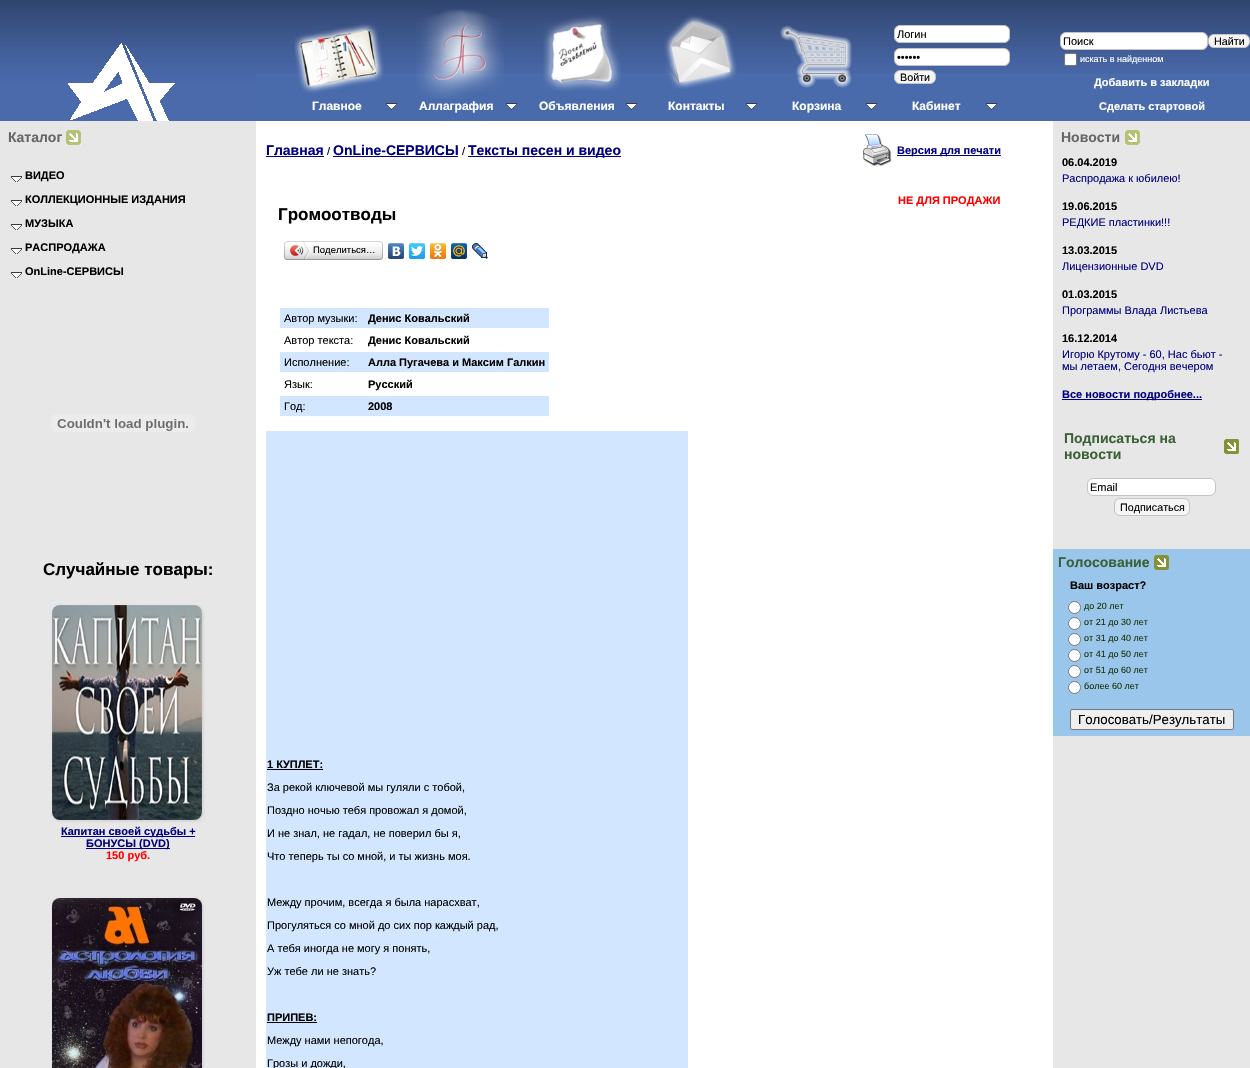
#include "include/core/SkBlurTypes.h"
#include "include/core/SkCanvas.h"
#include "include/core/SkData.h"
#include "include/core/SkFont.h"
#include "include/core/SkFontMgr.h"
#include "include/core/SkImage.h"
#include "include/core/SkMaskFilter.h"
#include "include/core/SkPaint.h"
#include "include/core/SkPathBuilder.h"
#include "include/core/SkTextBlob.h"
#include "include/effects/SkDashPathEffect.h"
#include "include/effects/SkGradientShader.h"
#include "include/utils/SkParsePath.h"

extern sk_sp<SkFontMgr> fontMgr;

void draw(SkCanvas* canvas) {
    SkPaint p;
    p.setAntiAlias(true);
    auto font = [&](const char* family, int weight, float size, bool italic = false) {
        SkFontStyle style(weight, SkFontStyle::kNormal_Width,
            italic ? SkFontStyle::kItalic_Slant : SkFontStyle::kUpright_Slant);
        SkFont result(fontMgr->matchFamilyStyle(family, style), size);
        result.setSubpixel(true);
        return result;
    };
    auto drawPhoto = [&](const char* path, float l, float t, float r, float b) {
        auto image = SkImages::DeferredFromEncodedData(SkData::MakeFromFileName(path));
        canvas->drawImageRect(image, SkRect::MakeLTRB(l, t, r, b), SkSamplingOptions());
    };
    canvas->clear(0xFFFFFFFF);
    drawPhoto("media/1.png", 0, 0, 256, 121);
    drawPhoto("media/2.png", 68, 43, 175, 121);
    p.setColor(0xFF496BAB);
    canvas->drawRect(SkRect::MakeLTRB(256, 73, 1250, 121), p);
    drawPhoto("media/3.png", 256, 0, 1053, 73);
    drawPhoto("media/4.png", 282, 0, 402, 73);
    drawPhoto("media/5.png", 294, 23, 384, 93);
    auto font1 = font("Liberation Sans", 700, 12);
    p.setColor(0xFFFFFFFF);
    canvas->drawString("Главное", 312, 110, font1, p);
    drawPhoto("media/6.png", 386, 103, 397, 110);
    drawPhoto("media/4.png", 402, 0, 522, 73);
    drawPhoto("media/7.png", 416, 9, 504, 99);
    canvas->drawString("Аллаграфия", 419, 110, font1, p);
    drawPhoto("media/6.png", 506, 103, 517, 110);
    drawPhoto("media/4.png", 522, 0, 642, 73);
    drawPhoto("media/8.png", 543, 15, 621, 91);
    canvas->drawString("Объявления", 539, 110, font1, p);
    drawPhoto("media/6.png", 626, 103, 637, 110);
    drawPhoto("media/4.png", 642, 0, 762, 73);
    drawPhoto("media/9.png", 664, 15, 737, 89);
    canvas->drawString("Контакты", 668, 110, font1, p);
    drawPhoto("media/6.png", 746, 103, 757, 110);
    drawPhoto("media/4.png", 762, 0, 882, 73);
    drawPhoto("media/10.png", 780, 25, 852, 88);
    canvas->drawString("Корзина", 792, 110, font1, p);
    drawPhoto("media/6.png", 866, 103, 877, 110);
    drawPhoto("media/4.png", 882, 0, 1002, 73);
    canvas->drawRoundRect(SkRect::MakeLTRB(894.5f, 25.5f, 1009.5f, 42.5f), 5.5f, 5.5f, p);
    p.setStyle(SkPaint::kStroke_Style);
    p.setStrokeWidth(1);
    p.setColor(0xFFC4C4C4);
    canvas->drawRoundRect(SkRect::MakeLTRB(894.5f, 25.5f, 1009.5f, 42.5f), 5.5f, 5.5f, p);
    auto font2 = font("Liberation Sans", 400, 11);
    p.setStyle(SkPaint::kFill_Style);
    p.setColor(0xFF000000);
    canvas->drawString("Логин", 897, 38, font2, p);
    p.setColor(0xFFFFFFFF);
    canvas->drawRoundRect(SkRect::MakeLTRB(894.5f, 48.5f, 1009.5f, 65.5f), 5.5f, 5.5f, p);
    p.setStyle(SkPaint::kStroke_Style);
    p.setColor(0xFFC4C4C4);
    canvas->drawRoundRect(SkRect::MakeLTRB(894.5f, 48.5f, 1009.5f, 65.5f), 5.5f, 5.5f, p);
    p.setStyle(SkPaint::kFill_Style);
    p.setColor(0xFF000000);
    canvas->drawString("••••••", 897, 61, font2, p);
    p.setColor(0xFFF5F5F5);
    canvas->drawRoundRect(SkRect::MakeLTRB(894.5f, 70.5f, 935.5f, 83.5f), 5.5f, 5.5f, p);
    p.setStyle(SkPaint::kStroke_Style);
    p.setColor(0xFFC4C4C4);
    canvas->drawRoundRect(SkRect::MakeLTRB(894.5f, 70.5f, 935.5f, 83.5f), 5.5f, 5.5f, p);
    auto font3 = font("Liberation Sans", 400, 10.75f);
    p.setStyle(SkPaint::kFill_Style);
    p.setColor(0xFF000000);
    canvas->drawString("Войти", 900, 81, font3, p);
    p.setColor(0xFFFFFFFF);
    canvas->drawString("Кабинет", 912, 110, font1, p);
    drawPhoto("media/6.png", 986, 103, 997, 110);
    drawPhoto("media/11.png", 1053, 0, 1250, 73);
    canvas->drawRoundRect(SkRect::MakeLTRB(1060.5f, 32.5f, 1207.5f, 49.5f), 5.5f, 5.5f, p);
    p.setStyle(SkPaint::kStroke_Style);
    p.setColor(0xFFC4C4C4);
    canvas->drawRoundRect(SkRect::MakeLTRB(1060.5f, 32.5f, 1207.5f, 49.5f), 5.5f, 5.5f, p);
    p.setStyle(SkPaint::kFill_Style);
    p.setColor(0xFF000000);
    canvas->drawString("Поиск", 1063, 45, font2, p);
    p.setColor(0xFFF5F5F5);
    canvas->drawRoundRect(SkRect::MakeLTRB(1208.5f, 34.5f, 1249.5f, 47.5f), 5.5f, 5.5f, p);
    p.setStyle(SkPaint::kStroke_Style);
    p.setColor(0xFFC4C4C4);
    canvas->drawRoundRect(SkRect::MakeLTRB(1208.5f, 34.5f, 1249.5f, 47.5f), 5.5f, 5.5f, p);
    p.setStyle(SkPaint::kFill_Style);
    p.setColor(0xFF000000);
    canvas->drawString("Найти", 1214, 45, font3, p);
    p.setColor(0xFFFFFFFF);
    canvas->drawRoundRect(SkRect::MakeLTRB(1064.5f, 53.5f, 1076.5f, 65.5f), 1.5f, 1.5f, p);
    p.setStyle(SkPaint::kStroke_Style);
    p.setColor(0xFF767676);
    canvas->drawRoundRect(SkRect::MakeLTRB(1064.5f, 53.5f, 1076.5f, 65.5f), 1.5f, 1.5f, p);
    auto font4 = font("Liberation Sans", 400, 9);
    p.setStyle(SkPaint::kFill_Style);
    p.setColor(0xFFFFFFFF);
    canvas->drawString("искать в найденном", 1080, 62, font4, p);
    auto font5 = font("Liberation Sans", 700, 11);
    canvas->drawString("Добавить в закладки", 1094, 86, font5, p);
    canvas->drawString("Сделать стартовой", 1099, 110, font5, p);
    p.setColor(0xFFE7E7E7);
    canvas->drawRect(SkRect::MakeLTRB(0, 121, 256, 1068), p);
    auto font6 = font("Liberation Sans", 700, 14);
    p.setColor(0xFF666666);
    canvas->drawString("Каталог", 8, 142, font6, p);
    drawPhoto("media/12.png", 66, 130, 81, 145);
    drawPhoto("media/13.png", 11, 176, 22, 182);
    p.setColor(0xFF000000);
    canvas->drawString("ВИДЕО", 25, 179, font5, p);
    drawPhoto("media/13.png", 11, 200, 22, 206);
    canvas->drawString("КОЛЛЕКЦИОННЫЕ ИЗДАНИЯ", 25, 203, font5, p);
    drawPhoto("media/13.png", 11, 224, 22, 230);
    canvas->drawString("МУЗЫКА", 25, 227, font5, p);
    drawPhoto("media/13.png", 11, 248, 22, 254);
    canvas->drawString("РАСПРОДАЖА", 25, 251, font5, p);
    drawPhoto("media/13.png", 11, 272, 22, 278);
    canvas->drawString("OnLine-СЕРВИСЫ", 25, 275, font5, p);
    drawPhoto("media/14.png", 51, 414, 195, 432);
    auto font7 = font("Liberation Sans", 700, 17);
    canvas->drawString("Случайные товары:", 43, 575, font7, p);
    p.setColor(0xFFCCCCCC);
    p.setMaskFilter(SkMaskFilter::MakeBlur(kNormal_SkBlurStyle, 1.5f));
    canvas->drawRoundRect(SkRect::MakeLTRB(53, 606, 203, 821), 8, 8, p);
    p.setMaskFilter(nullptr);
    drawPhoto("media/15.png", 52, 605, 202, 820);
    p.setColor(0xFF000080);
    canvas->drawRect(SkRect::MakeLTRB(61, 836, 195, 837), p);
    canvas->drawString("Капитан своей судьбы +", 61, 835, font5, p);
    canvas->drawRect(SkRect::MakeLTRB(86, 848, 170, 849), p);
    canvas->drawString("БОНУСЫ (DVD)", 86, 847, font5, p);
    p.setColor(0xFFFF0000);
    canvas->drawString("150 руб.", 106, 859, font5, p);
    p.setColor(0xFFCCCCCC);
    p.setMaskFilter(SkMaskFilter::MakeBlur(kNormal_SkBlurStyle, 1.5f));
    canvas->drawRoundRect(SkRect::MakeLTRB(53, 899, 203, 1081), 8, 8, p);
    p.setMaskFilter(nullptr);
    drawPhoto("media/16.png", 52, 898, 202, 1068);
    p.setColor(0xFF000080);
    canvas->drawString("Главная", 266, 155, font6, p);
    canvas->drawRect(SkRect::MakeLTRB(266, 156, 324, 157), p);
    p.setColor(0xFF000000);
    canvas->drawString("/", 327, 155, font2, p);
    p.setColor(0xFF000080);
    canvas->drawString("OnLine-СЕРВИСЫ", 333, 155, font6, p);
    canvas->drawRect(SkRect::MakeLTRB(333, 156, 458, 157), p);
    p.setColor(0xFF000000);
    canvas->drawString("/", 462, 155, font2, p);
    p.setColor(0xFF000080);
    canvas->drawRect(SkRect::MakeLTRB(468, 156, 621, 157), p);
    canvas->drawString("Тексты песен и видео", 468, 155, font6, p);
    drawPhoto("media/17.png", 863, 134, 892, 166);
    canvas->drawRect(SkRect::MakeLTRB(897, 155, 1001, 156), p);
    canvas->drawString("Версия для печати", 897, 154, font5, p);
    p.setColor(0xFFFF0000);
    canvas->drawString("НЕ ДЛЯ ПРОДАЖИ", 898, 204, font5, p);
    p.setColor(0xFF000000);
    canvas->drawString("Громоотводы", 278, 220, font7, p);
    drawPhoto("media/18.png", 287, 241, 380, 260);
    drawPhoto("media/19.png", 284, 241, 287, 260);
    drawPhoto("media/20.png", 290, 242, 310, 259);
    auto font8 = font("Liberation Sans", 400, 9.5f);
    canvas->drawString("Поделиться…", 313, 253, font8, p);
    drawPhoto("media/21.png", 380, 241, 383, 260);
    drawPhoto("media/22.png", 388, 243, 404, 259);
    drawPhoto("media/23.png", 409, 243, 425, 259);
    drawPhoto("media/24.png", 430, 243, 446, 259);
    drawPhoto("media/25.png", 451, 243, 467, 259);
    drawPhoto("media/26.png", 472, 243, 488, 259);
    p.setColor(0xFFD2E7FF);
    canvas->drawRect(SkRect::MakeLTRB(280, 308, 549, 328), p);
    p.setColor(0xFF000000);
    canvas->drawString("Автор музыки:", 284, 322, font2, p);
    canvas->drawString("Денис Ковальский", 368, 322, font5, p);
    canvas->drawString("Автор текста:", 284, 344, font2, p);
    canvas->drawString("Денис Ковальский", 368, 344, font5, p);
    p.setColor(0xFFD2E7FF);
    canvas->drawRect(SkRect::MakeLTRB(280, 352, 549, 372), p);
    p.setColor(0xFF000000);
    canvas->drawString("Исполнение:", 284, 366, font2, p);
    canvas->drawString("Алла Пугачева и Максим Галкин", 368, 366, font5, p);
    canvas->drawString("Язык:", 284, 388, font2, p);
    canvas->drawString("Русский", 368, 388, font5, p);
    p.setColor(0xFFD2E7FF);
    canvas->drawRect(SkRect::MakeLTRB(280, 396, 549, 416), p);
    p.setColor(0xFF000000);
    canvas->drawString("Год:", 284, 410, font2, p);
    canvas->drawString("2008", 368, 410, font5, p);
    p.setColor(0xFFD2E7FF);
    canvas->drawRect(SkRect::MakeLTRB(266, 431, 688, 1068), p);
    p.setColor(0xFF000000);
    canvas->drawString("1 КУПЛЕТ:", 267, 768, font5, p);
    canvas->drawRect(SkRect::MakeLTRB(267, 769, 323, 770), p);
    {
        const struct { const char* s; float x, y; } items[] = {
            {"За рекой ключевой мы гуляли с тобой,", 267, 791},
            {"Поздно ночью тебя провожал я домой,", 267, 814},
            {"И не знал, не гадал, не поверил бы я,", 267, 837},
            {"Что теперь ты со мной, и ты жизнь моя.", 267, 860},
            {"Между прочим, всегда я была нарасхват,", 267, 906},
            {"Прогуляться со мной до сих пор каждый рад,", 267, 929},
            {"А тебя иногда не могу я понять,", 267, 952},
            {"Уж тебе ли не знать?", 267, 975},
        };
        for (auto [s, x, y] : items) {
            canvas->drawString(s, x, y, font2, p);
        }
    }
    canvas->drawString("ПРИПЕВ:", 267, 1021, font5, p);
    canvas->drawRect(SkRect::MakeLTRB(267, 1022, 317, 1023), p);
    canvas->drawString("Между нами непогода,", 267, 1044, font2, p);
    canvas->drawString("Грозы и дожди,", 267, 1067, font2, p);
    p.setColor(0xFFE7E7E7);
    canvas->drawRect(SkRect::MakeLTRB(1053, 121, 1250, 1068), p);
    p.setColor(0xFF666666);
    canvas->drawString("Новости", 1061, 142, font6, p);
    drawPhoto("media/12.png", 1125, 130, 1140, 145);
    p.setColor(0xFF000000);
    canvas->drawString("06.04.2019", 1062, 166, font5, p);
    p.setColor(0xFF000080);
    canvas->drawString("Распродажа к юбилею!", 1062, 182, font2, p);
    p.setColor(0xFF000000);
    canvas->drawString("19.06.2015", 1062, 210, font5, p);
    p.setColor(0xFF000080);
    canvas->drawString("РЕДКИЕ пластинки!!!", 1062, 226, font2, p);
    p.setColor(0xFF000000);
    canvas->drawString("13.03.2015", 1062, 254, font5, p);
    p.setColor(0xFF000080);
    canvas->drawString("Лицензионные DVD", 1062, 270, font2, p);
    p.setColor(0xFF000000);
    canvas->drawString("01.03.2015", 1062, 298, font5, p);
    p.setColor(0xFF000080);
    canvas->drawString("Программы Влада Листьева", 1062, 314, font2, p);
    p.setColor(0xFF000000);
    canvas->drawString("16.12.2014", 1062, 342, font5, p);
    p.setColor(0xFF000080);
    canvas->drawString("Игорю Крутому - 60, Нас бьют -", 1062, 358, font2, p);
    canvas->drawString("мы летаем, Сегодня вечером", 1062, 370, font2, p);
    canvas->drawRect(SkRect::MakeLTRB(1062, 399, 1202, 400), p);
    canvas->drawString("Все новости подробнее...", 1062, 398, font5, p);
    p.setColor(0xFF3A6135);
    canvas->drawString("Подписаться на", 1064, 443, font6, p);
    canvas->drawString("новости", 1064, 459, font6, p);
    drawPhoto("media/27.png", 1224, 439, 1239, 454);
    p.setColor(0xFFFFFFFF);
    canvas->drawRoundRect(SkRect::MakeLTRB(1087.5f, 478.5f, 1215.5f, 495.5f), 5.5f, 5.5f, p);
    p.setStyle(SkPaint::kStroke_Style);
    p.setColor(0xFFC4C4C4);
    canvas->drawRoundRect(SkRect::MakeLTRB(1087.5f, 478.5f, 1215.5f, 495.5f), 5.5f, 5.5f, p);
    p.setStyle(SkPaint::kFill_Style);
    p.setColor(0xFF000000);
    canvas->drawString("Email", 1090, 491, font2, p);
    p.setColor(0xFFF5F5F5);
    canvas->drawRoundRect(SkRect::MakeLTRB(1114.5f, 498.5f, 1189.5f, 515.5f), 5.5f, 5.5f, p);
    p.setStyle(SkPaint::kStroke_Style);
    p.setColor(0xFFC4C4C4);
    canvas->drawRoundRect(SkRect::MakeLTRB(1114.5f, 498.5f, 1189.5f, 515.5f), 5.5f, 5.5f, p);
    p.setStyle(SkPaint::kFill_Style);
    p.setColor(0xFF000000);
    canvas->drawString("Подписаться", 1120, 511, font3, p);
    p.setColor(0xFF9AC6EC);
    canvas->drawRect(SkRect::MakeLTRB(1053, 549, 1250, 736), p);
    p.setColor(0xFF3A6135);
    canvas->drawString("Голосование", 1058, 567, font6, p);
    drawPhoto("media/28.png", 1154, 555, 1169, 570);
    p.setColor(0xFF000000);
    canvas->drawString("Ваш возраст?", 1070, 589, font5, p);
    p.setColor(0xFFFFFFFF);
    canvas->drawCircle(1074.5f, 607.5f, 6, p);
    p.setStyle(SkPaint::kStroke_Style);
    p.setColor(0xFF767676);
    canvas->drawCircle(1074.5f, 607.5f, 6, p);
    p.setStyle(SkPaint::kFill_Style);
    p.setColor(0xFF163106);
    canvas->drawString("до 20 лет", 1084, 609, font4, p);
    p.setColor(0xFFFFFFFF);
    canvas->drawCircle(1074.5f, 623.5f, 6, p);
    p.setStyle(SkPaint::kStroke_Style);
    p.setColor(0xFF767676);
    canvas->drawCircle(1074.5f, 623.5f, 6, p);
    p.setStyle(SkPaint::kFill_Style);
    p.setColor(0xFF163106);
    canvas->drawString("от 21 до 30 лет", 1084, 625, font4, p);
    p.setColor(0xFFFFFFFF);
    canvas->drawCircle(1074.5f, 639.5f, 6, p);
    p.setStyle(SkPaint::kStroke_Style);
    p.setColor(0xFF767676);
    canvas->drawCircle(1074.5f, 639.5f, 6, p);
    p.setStyle(SkPaint::kFill_Style);
    p.setColor(0xFF163106);
    canvas->drawString("от 31 до 40 лет", 1084, 641, font4, p);
    p.setColor(0xFFFFFFFF);
    canvas->drawCircle(1074.5f, 655.5f, 6, p);
    p.setStyle(SkPaint::kStroke_Style);
    p.setColor(0xFF767676);
    canvas->drawCircle(1074.5f, 655.5f, 6, p);
    p.setStyle(SkPaint::kFill_Style);
    p.setColor(0xFF163106);
    canvas->drawString("от 41 до 50 лет", 1084, 657, font4, p);
    p.setColor(0xFFFFFFFF);
    canvas->drawCircle(1074.5f, 671.5f, 6, p);
    p.setStyle(SkPaint::kStroke_Style);
    p.setColor(0xFF767676);
    canvas->drawCircle(1074.5f, 671.5f, 6, p);
    p.setStyle(SkPaint::kFill_Style);
    p.setColor(0xFF163106);
    canvas->drawString("от 51 до 60 лет", 1084, 673, font4, p);
    p.setColor(0xFFFFFFFF);
    canvas->drawCircle(1074.5f, 687.5f, 6, p);
    p.setStyle(SkPaint::kStroke_Style);
    p.setColor(0xFF767676);
    canvas->drawCircle(1074.5f, 687.5f, 6, p);
    p.setStyle(SkPaint::kFill_Style);
    p.setColor(0xFF163106);
    canvas->drawString("более 60 лет", 1084, 689, font4, p);
    p.setColor(0xFFEFEFEF);
    canvas->drawRoundRect(SkRect::MakeLTRB(1070.5f, 709.5f, 1233.5f, 729.5f), 1.5f, 1.5f, p);
    p.setStyle(SkPaint::kStroke_Style);
    p.setColor(0xFF767676);
    canvas->drawRoundRect(SkRect::MakeLTRB(1070.5f, 709.5f, 1233.5f, 729.5f), 1.5f, 1.5f, p);
    auto font9 = font("Liberation Sans", 400, 13.25f);
    p.setStyle(SkPaint::kFill_Style);
    p.setColor(0xFF000000);
    canvas->drawString("Голосовать/Результаты", 1078, 724, font9, p);
}
